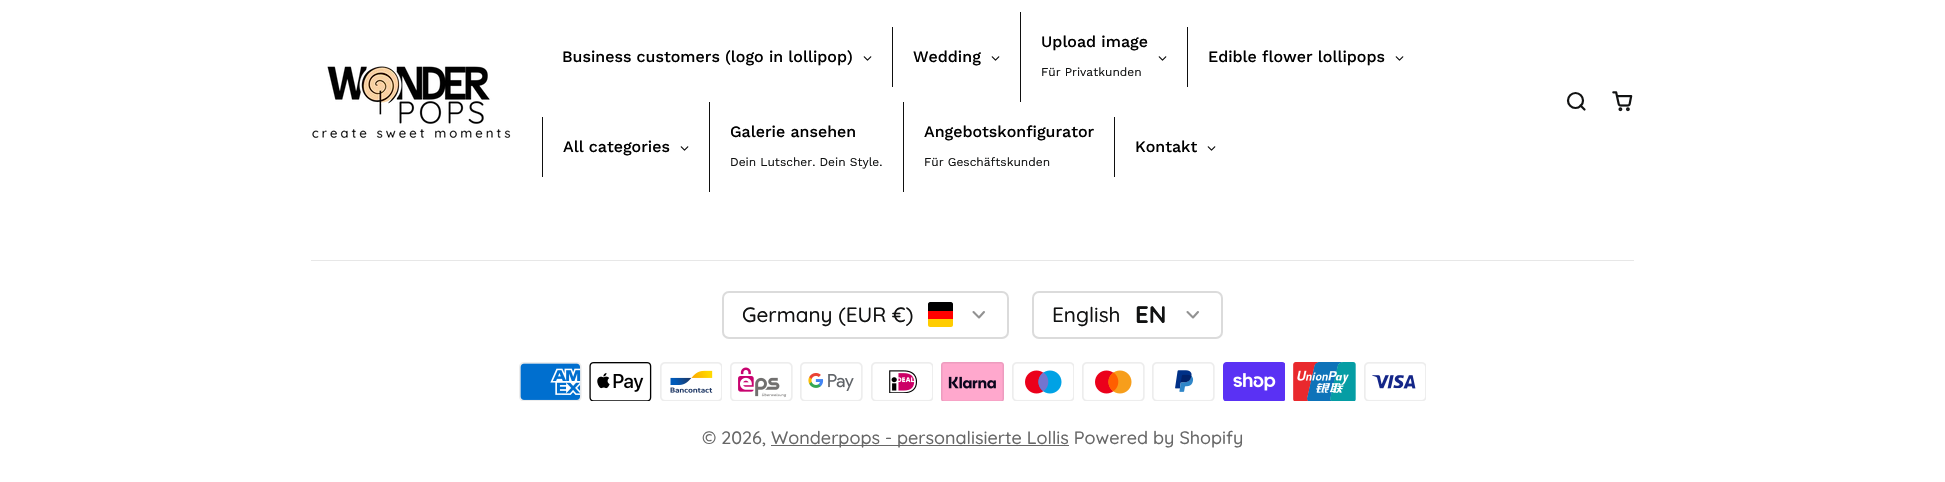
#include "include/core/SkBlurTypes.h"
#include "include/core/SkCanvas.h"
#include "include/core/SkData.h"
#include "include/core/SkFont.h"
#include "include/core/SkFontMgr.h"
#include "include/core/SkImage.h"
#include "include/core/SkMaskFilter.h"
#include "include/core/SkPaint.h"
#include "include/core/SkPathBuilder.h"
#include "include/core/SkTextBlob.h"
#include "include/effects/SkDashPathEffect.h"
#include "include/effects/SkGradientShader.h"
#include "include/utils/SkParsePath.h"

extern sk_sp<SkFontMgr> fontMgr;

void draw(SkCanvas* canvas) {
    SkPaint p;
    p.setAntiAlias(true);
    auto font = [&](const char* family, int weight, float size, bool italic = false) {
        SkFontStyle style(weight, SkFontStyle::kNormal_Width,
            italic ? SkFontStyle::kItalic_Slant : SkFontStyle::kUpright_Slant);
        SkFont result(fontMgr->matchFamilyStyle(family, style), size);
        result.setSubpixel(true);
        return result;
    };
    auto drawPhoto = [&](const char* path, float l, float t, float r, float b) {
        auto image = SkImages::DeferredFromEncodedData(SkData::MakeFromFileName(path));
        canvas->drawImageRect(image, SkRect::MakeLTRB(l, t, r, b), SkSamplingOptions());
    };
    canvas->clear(0xFFFFFFFF);
    drawPhoto("media/1.png", 312, 66, 511, 138);
    auto font1 = font("Work Sans", 500, 16);
    p.setColor(0xFF000000);
    canvas->drawString("Business customers (logo in lollipop)", 562, 62, font1, p);
    drawPhoto("media/2.png", 863, 56, 872, 61);
    p.setColor(0xFF0F0F0F);
    canvas->drawRect(SkRect::MakeLTRB(892, 27, 893, 87), p);
    p.setColor(0xFF000000);
    canvas->drawString("Wedding", 913, 62, font1, p);
    drawPhoto("media/2.png", 991, 56, 1000, 61);
    p.setColor(0xFF0F0F0F);
    canvas->drawRect(SkRect::MakeLTRB(1020, 12, 1021, 102), p);
    p.setColor(0xFF000000);
    canvas->drawString("Upload image", 1041, 47, font1, p);
    auto font2 = font("Work Sans", 400, 12);
    p.setColor(0xFF111212);
    canvas->drawString("Für Privatkunden", 1041, 76, font2, p);
    drawPhoto("media/2.png", 1158, 56, 1167, 61);
    p.setColor(0xFF0F0F0F);
    canvas->drawRect(SkRect::MakeLTRB(1187, 27, 1188, 87), p);
    p.setColor(0xFF000000);
    canvas->drawString("Edible flower lollipops", 1208, 62, font1, p);
    drawPhoto("media/2.png", 1395, 56, 1404, 61);
    p.setColor(0xFF0F0F0F);
    canvas->drawRect(SkRect::MakeLTRB(542, 117, 543, 177), p);
    p.setColor(0xFF000000);
    canvas->drawString("All categories", 563, 152, font1, p);
    drawPhoto("media/2.png", 680, 146, 689, 151);
    p.setColor(0xFF0F0F0F);
    canvas->drawRect(SkRect::MakeLTRB(709, 102, 710, 192), p);
    p.setColor(0xFF000000);
    canvas->drawString("Galerie ansehen", 730, 137, font1, p);
    p.setColor(0xFF111212);
    canvas->drawString("Dein Lutscher. Dein Style.", 730, 166, font2, p);
    p.setColor(0xFF0F0F0F);
    canvas->drawRect(SkRect::MakeLTRB(903, 102, 904, 192), p);
    p.setColor(0xFF000000);
    canvas->drawString("Angebotskonfigurator", 924, 137, font1, p);
    p.setColor(0xFF111212);
    canvas->drawString("Für Geschäftskunden", 924, 166, font2, p);
    p.setColor(0xFF0F0F0F);
    canvas->drawRect(SkRect::MakeLTRB(1114, 117, 1115, 177), p);
    p.setColor(0xFF000000);
    canvas->drawString("Kontakt", 1135, 152, font1, p);
    drawPhoto("media/2.png", 1207, 146, 1216, 151);
    p.setStyle(SkPaint::kStroke_Style);
    p.setStrokeWidth(2.2f);
    p.setColor(0xFF111212);
    canvas->drawCircle(1575.5f, 100.5f, 7.5f, p);
    p.setStrokeCap(SkPaint::kRound_Cap);
    p.setStrokeJoin(SkPaint::kRound_Join);
    canvas->drawPath(SkPathBuilder().moveTo(1584.5f, 109.5f).lineTo(1580.5f, 105.5f).detach(), p);
    drawPhoto("media/3.png", 1612, 91, 1633, 112);
    p.setStyle(SkPaint::kFill_Style);
    p.setColor(0xFFE7E7E7);
    canvas->drawRect(SkRect::MakeLTRB(311, 260, 1634, 261), p);
    p.setStyle(SkPaint::kStroke_Style);
    p.setStrokeWidth(2);
    p.setStrokeCap(SkPaint::kButt_Cap);
    p.setStrokeJoin(SkPaint::kMiter_Join);
    p.setColor(0xFFDBDBDB);
    canvas->drawRoundRect(SkRect::MakeLTRB(723, 292, 1008, 338), 6, 6, p);
    auto font3 = font("Quicksand", 500, 20.75f);
    p.setStyle(SkPaint::kFill_Style);
    p.setColor(0xFF111212);
    canvas->drawString("Germany (EUR €)", 742, 322, font3, p);
    p.setColor(0xFFFFCC00);
    canvas->drawPath(SkPathBuilder().moveTo(928, 319).lineTo(953, 319).lineTo(953, 325).cubicTo(953, 326, 952, 327, 951, 327).lineTo(930, 327).cubicTo(929, 327, 928, 326, 928, 325).close().detach(), p);
    p.setColor(0xFF000001);
    canvas->drawPath(SkPathBuilder().moveTo(930, 302).lineTo(951, 302).cubicTo(952, 302, 953, 303, 953, 304).lineTo(953, 311).lineTo(928, 311).lineTo(928, 304).cubicTo(928, 303, 929, 302, 930, 302).close().detach(), p);
    p.setColor(0xFFFF0000);
    canvas->drawRect(SkRect::MakeLTRB(928, 311, 953, 319), p);
    p.setStyle(SkPaint::kStroke_Style);
    p.setStrokeWidth(2.1f);
    p.setStrokeCap(SkPaint::kRound_Cap);
    p.setStrokeJoin(SkPaint::kRound_Join);
    p.setColor(0xFF929292);
    canvas->drawPath(SkPathBuilder().moveTo(973.5f, 312).lineTo(979, 317.5f).lineTo(984, 312).detach(), p);
    p.setStrokeWidth(2);
    p.setStrokeCap(SkPaint::kButt_Cap);
    p.setStrokeJoin(SkPaint::kMiter_Join);
    p.setColor(0xFFDBDBDB);
    canvas->drawRoundRect(SkRect::MakeLTRB(1033, 292, 1222, 338), 6, 6, p);
    p.setStyle(SkPaint::kFill_Style);
    p.setColor(0xFF111212);
    canvas->drawString("English", 1052, 322, font3, p);
    auto font4 = font("Quicksand", 700, 24);
    canvas->drawString("EN", 1135, 323, font4, p);
    p.setStyle(SkPaint::kStroke_Style);
    p.setStrokeWidth(2.1f);
    p.setStrokeCap(SkPaint::kRound_Cap);
    p.setStrokeJoin(SkPaint::kRound_Join);
    p.setColor(0xFF929292);
    canvas->drawPath(SkPathBuilder().moveTo(1187.5f, 312).lineTo(1193, 317.5f).lineTo(1198, 312).detach(), p);
    drawPhoto("media/4.png", 519, 362, 582, 401);
    drawPhoto("media/5.png", 589, 362, 652, 401);
    drawPhoto("media/6.png", 660, 362, 722, 401);
    drawPhoto("media/7.png", 730, 362, 793, 401);
    drawPhoto("media/8.png", 800, 362, 863, 401);
    drawPhoto("media/9.png", 871, 362, 933, 401);
    drawPhoto("media/10.png", 941, 362, 1004, 401);
    drawPhoto("media/11.png", 1012, 362, 1074, 401);
    drawPhoto("media/12.png", 1082, 362, 1145, 401);
    drawPhoto("media/13.png", 1152, 362, 1215, 401);
    drawPhoto("media/14.png", 1223, 362, 1285, 401);
    drawPhoto("media/15.png", 1293, 362, 1356, 401);
    drawPhoto("media/16.png", 1364, 362, 1426, 401);
    auto font5 = font("Quicksand", 500, 18);
    p.setStyle(SkPaint::kFill_Style);
    p.setColor(0xFF676767);
    canvas->drawString("© 2026,", 702, 444, font5, p);
    canvas->drawRect(SkRect::MakeLTRB(771, 445, 1069, 446), p);
    canvas->drawString("Wonderpops - personalisierte Lollis Powered by Shopify", 771, 444, font5, p);
}
